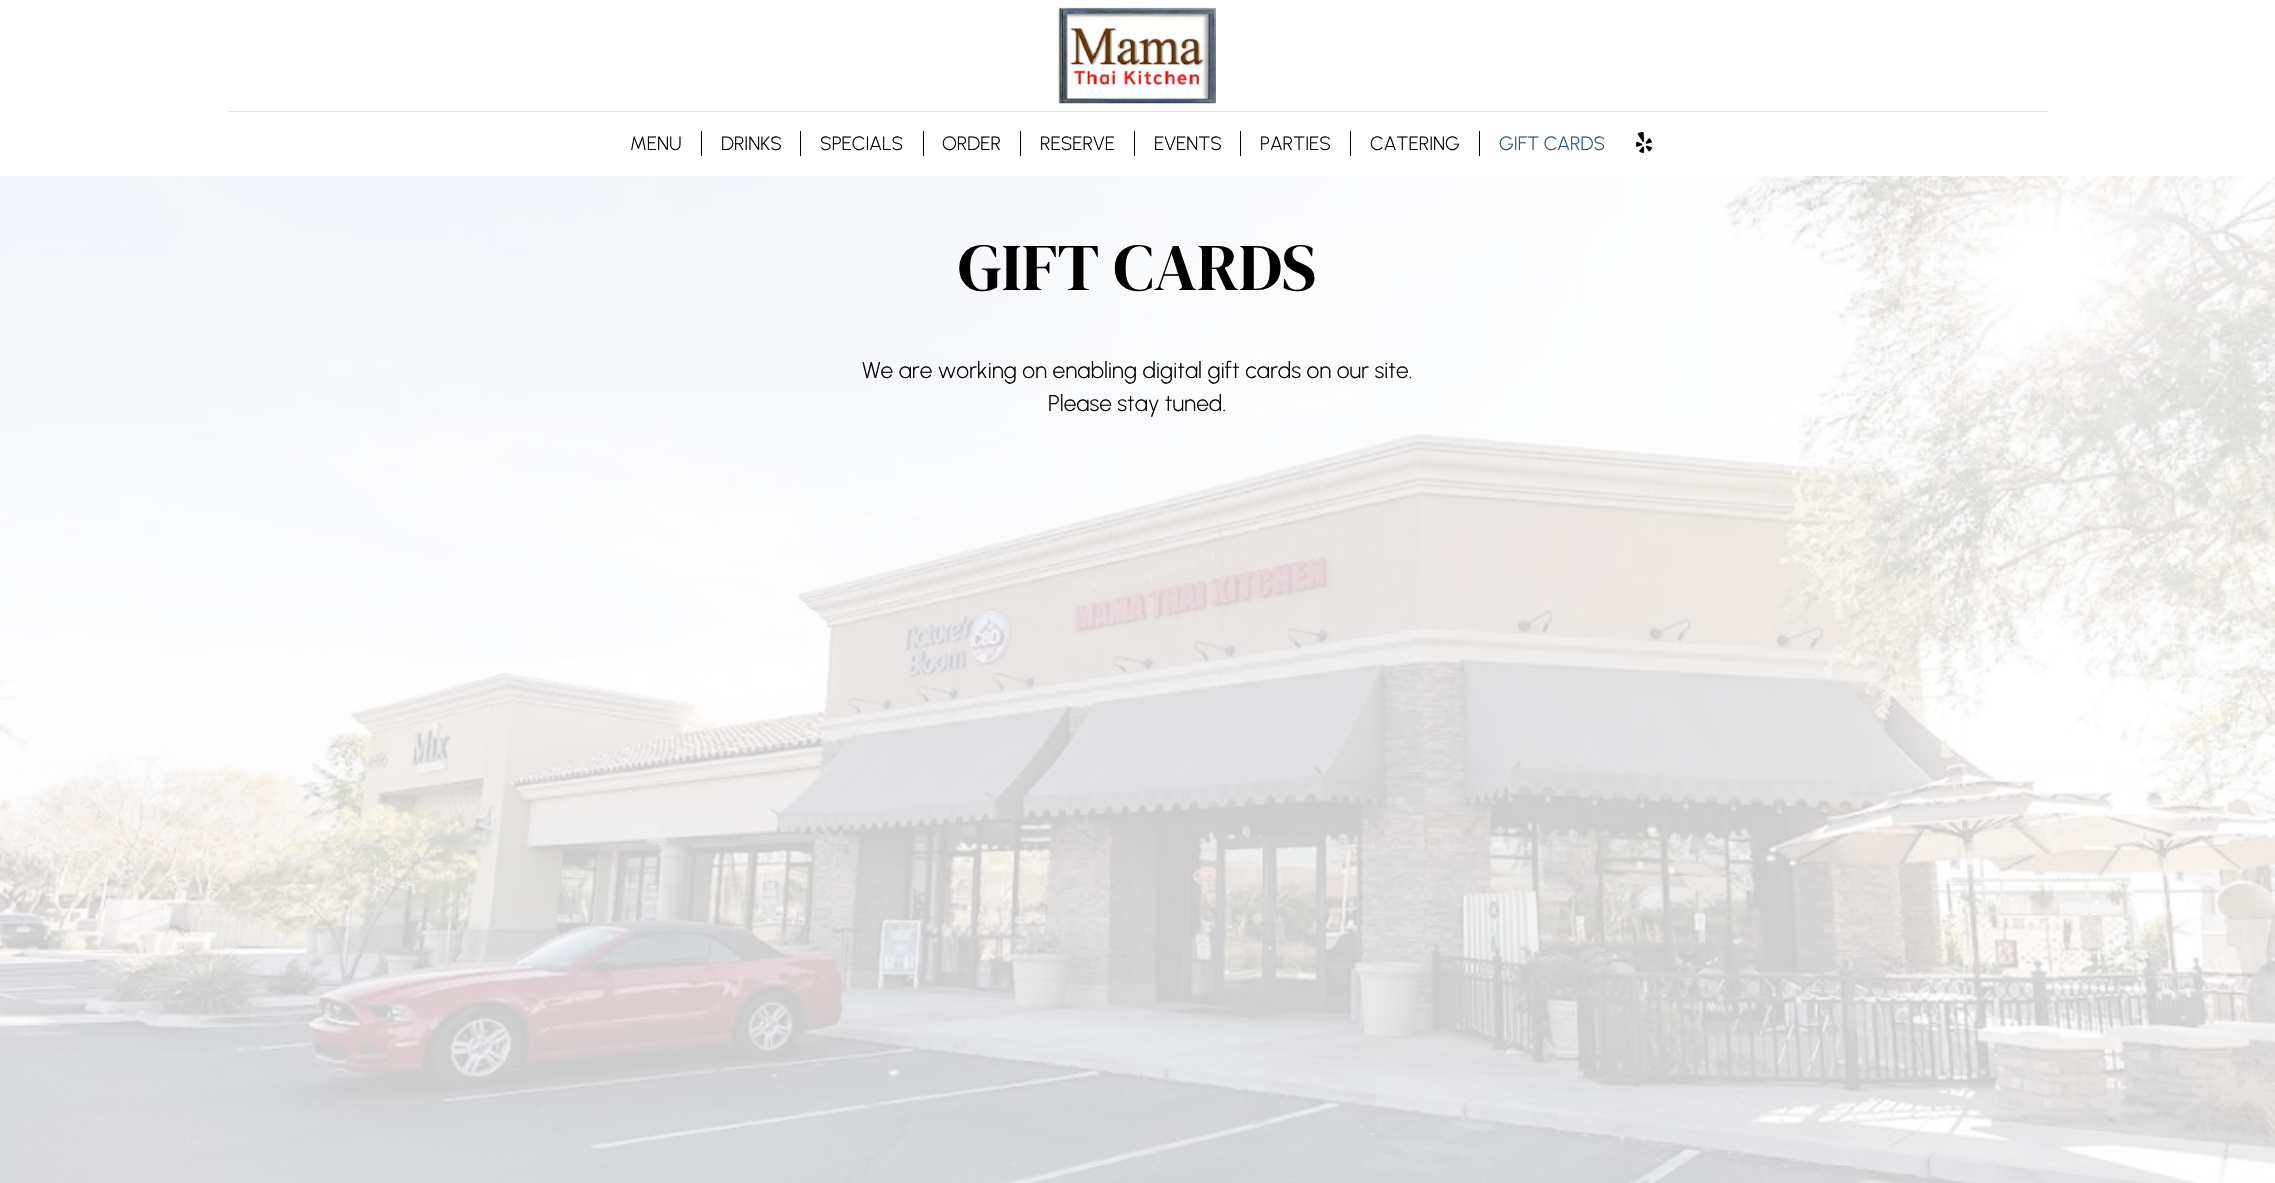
#include "include/core/SkBlurTypes.h"
#include "include/core/SkCanvas.h"
#include "include/core/SkData.h"
#include "include/core/SkFont.h"
#include "include/core/SkFontMgr.h"
#include "include/core/SkImage.h"
#include "include/core/SkMaskFilter.h"
#include "include/core/SkPaint.h"
#include "include/core/SkPathBuilder.h"
#include "include/core/SkTextBlob.h"
#include "include/effects/SkDashPathEffect.h"
#include "include/effects/SkGradientShader.h"
#include "include/utils/SkParsePath.h"

extern sk_sp<SkFontMgr> fontMgr;

void draw(SkCanvas* canvas) {
    SkPaint p;
    p.setAntiAlias(true);
    auto font = [&](const char* family, int weight, float size, bool italic = false) {
        SkFontStyle style(weight, SkFontStyle::kNormal_Width,
            italic ? SkFontStyle::kItalic_Slant : SkFontStyle::kUpright_Slant);
        SkFont result(fontMgr->matchFamilyStyle(family, style), size);
        result.setSubpixel(true);
        return result;
    };
    auto drawPhoto = [&](const char* path, float l, float t, float r, float b) {
        auto image = SkImages::DeferredFromEncodedData(SkData::MakeFromFileName(path));
        canvas->drawImageRect(image, SkRect::MakeLTRB(l, t, r, b), SkSamplingOptions());
    };
    canvas->clear(0xFFFFFFFF);
    p.setColor(0xFFE2E2E2);
    canvas->drawRect(SkRect::MakeLTRB(228, 111, 2048, 112), p);
    drawPhoto("media/1.png", 1058, 7, 1216, 104);
    p.setColor(0xFF000000);
    canvas->drawRect(SkRect::MakeLTRB(701, 131, 702, 156), p);
    auto font1 = font("Urbanist", 300, 19.25f);
    canvas->drawString("MENU", 630, 150, font1, p);
    canvas->drawRect(SkRect::MakeLTRB(800, 131, 801, 156), p);
    canvas->drawString("DRINKS", 721, 150, font1, p);
    canvas->drawRect(SkRect::MakeLTRB(923, 131, 924, 156), p);
    canvas->drawString("SPECIALS", 820, 150, font1, p);
    canvas->drawRect(SkRect::MakeLTRB(1020, 131, 1021, 156), p);
    canvas->drawString("ORDER", 942, 150, font1, p);
    canvas->drawRect(SkRect::MakeLTRB(1134, 131, 1135, 156), p);
    canvas->drawString("RESERVE", 1040, 150, font1, p);
    canvas->drawRect(SkRect::MakeLTRB(1240, 131, 1241, 156), p);
    canvas->drawString("EVENTS", 1154, 150, font1, p);
    canvas->drawRect(SkRect::MakeLTRB(1350, 131, 1351, 156), p);
    canvas->drawString("PARTIES", 1260, 150, font1, p);
    canvas->drawRect(SkRect::MakeLTRB(1479, 131, 1480, 156), p);
    canvas->drawString("CATERING", 1370, 150, font1, p);
    p.setColor(0xFF245168);
    canvas->drawString("GIFT CARDS", 1499, 150, font1, p);
    drawPhoto("media/2.png", 1636, 132, 1652, 153);
    drawPhoto("media/3.png", 0, 176, 2275, 1183);
    auto font2 = font("DM Serif Display", 400, 66.5f);
    p.setColor(0xFF000000);
    canvas->drawString("GIFT CARDS", 958, 290, font2, p);
    auto font3 = font("Urbanist", 300, 22.75f);
    canvas->drawString("We are working on enabling digital gift cards on our site.", 862, 378, font3, p);
    canvas->drawString("Please stay tuned.", 1048, 411, font3, p);
}
